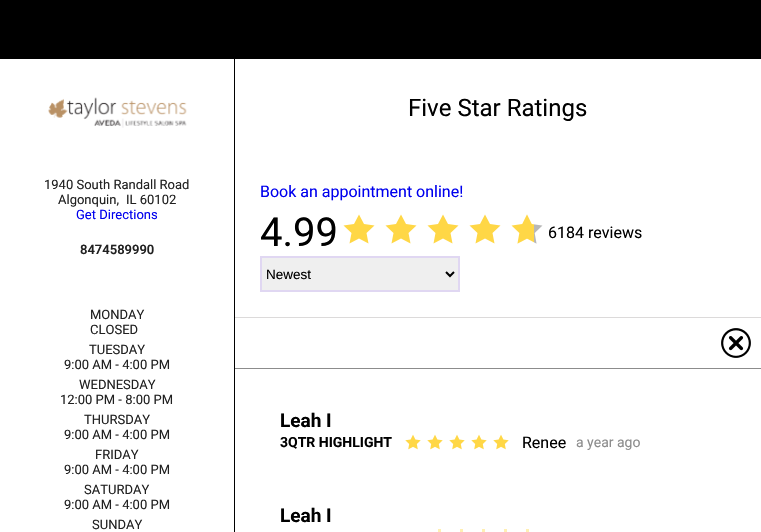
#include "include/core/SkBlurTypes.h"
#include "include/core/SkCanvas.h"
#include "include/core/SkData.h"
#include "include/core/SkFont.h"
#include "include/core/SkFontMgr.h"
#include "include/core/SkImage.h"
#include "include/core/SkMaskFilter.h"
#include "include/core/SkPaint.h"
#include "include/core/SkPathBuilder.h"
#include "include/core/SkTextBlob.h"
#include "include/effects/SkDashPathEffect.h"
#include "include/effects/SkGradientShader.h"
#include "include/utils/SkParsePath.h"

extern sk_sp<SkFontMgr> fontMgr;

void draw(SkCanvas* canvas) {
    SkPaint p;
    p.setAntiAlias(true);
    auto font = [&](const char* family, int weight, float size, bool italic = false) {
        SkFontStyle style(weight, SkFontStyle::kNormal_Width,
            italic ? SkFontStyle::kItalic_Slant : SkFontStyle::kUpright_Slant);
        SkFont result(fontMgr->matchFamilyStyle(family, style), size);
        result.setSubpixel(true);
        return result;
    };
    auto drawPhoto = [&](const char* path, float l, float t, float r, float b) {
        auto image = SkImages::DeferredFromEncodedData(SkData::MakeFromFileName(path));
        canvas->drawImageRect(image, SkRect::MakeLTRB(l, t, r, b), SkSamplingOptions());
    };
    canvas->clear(0xFFFFFFFF);
    p.setColor(0xFF000000);
    canvas->drawRect(SkRect::MakeLTRB(0, 0, 761, 59), p);
    canvas->drawRect(SkRect::MakeLTRB(234, 59, 235, 532), p);
    drawPhoto("media/1.png", 48, 97, 187, 128);
    auto font1 = font("Roboto", 400, 13);
    p.setColor(0xFF212121);
    {
        const struct { const char* s; float x, y; } items[] = {
            {"1940 South Randall Road", 44, 189},
            {"Algonquin,", 58, 204},
            {"IL 60102", 126, 204},
        };
        for (auto [s, x, y] : items) {
            canvas->drawString(s, x, y, font1, p);
        }
    }
    p.setColor(0xFF0000EE);
    canvas->drawString("Get Directions", 76, 219, font1, p);
    auto font2 = font("Roboto", 600, 13);
    p.setColor(0xFF212121);
    canvas->drawString("8474589990", 80, 254, font2, p);
    {
        const struct { const char* s; float x, y; } items[] = {
            {"MONDAY", 90, 319},
            {"CLOSED", 90, 334},
            {"TUESDAY", 89, 354},
            {"9:00 AM - 4:00 PM", 64, 369},
            {"WEDNESDAY", 79, 389},
            {"12:00 PM - 8:00 PM", 60, 404},
            {"THURSDAY", 84, 424},
            {"9:00 AM - 4:00 PM", 64, 439},
            {"FRIDAY", 95, 459},
            {"9:00 AM - 4:00 PM", 64, 474},
            {"SATURDAY", 84, 494},
            {"9:00 AM - 4:00 PM", 64, 509},
            {"SUNDAY", 92, 529},
        };
        for (auto [s, x, y] : items) {
            canvas->drawString(s, x, y, font1, p);
        }
    }
    auto font3 = font("Roboto", 400, 24);
    p.setColor(0xFF000000);
    canvas->drawString("Five Star Ratings", 408, 116, font3, p);
    p.setColor(0xFFDCDADA);
    canvas->drawRect(SkRect::MakeLTRB(235, 317, 761, 318), p);
    auto font4 = font("Roboto", 400, 16);
    p.setColor(0xFF0000EE);
    canvas->drawString("Book an appointment online!", 260, 197, font4, p);
    auto font5 = font("Roboto", 400, 40);
    p.setColor(0xFF000000);
    canvas->drawString("4.99", 260, 246, font5, p);
    p.setColor(0xFFFFD746);
    canvas->drawPath(SkPathBuilder().moveTo(374.5f, 225.5f).lineTo(364, 224).lineTo(359, 214.5f).lineTo(354, 224).lineTo(343.5f, 225.5f).lineTo(351.5f, 233).lineTo(349.5f, 243.5f).lineTo(359, 238.5f).lineTo(368.5f, 243.5f).lineTo(366.5f, 233).lineTo(374.5f, 225.5f).detach(), p);
    canvas->drawPath(SkPathBuilder().moveTo(416.5f, 225.5f).lineTo(406, 224).lineTo(401, 214.5f).lineTo(396, 224).lineTo(385.5f, 225.5f).lineTo(393.5f, 233).lineTo(391.5f, 243.5f).lineTo(401, 238.5f).lineTo(410.5f, 243.5f).lineTo(408.5f, 233).lineTo(416.5f, 225.5f).detach(), p);
    canvas->drawPath(SkPathBuilder().moveTo(458.5f, 225.5f).lineTo(448, 224).lineTo(443, 214.5f).lineTo(438, 224).lineTo(427.5f, 225.5f).lineTo(435.5f, 233).lineTo(433.5f, 243.5f).lineTo(443, 238.5f).lineTo(452.5f, 243.5f).lineTo(450.5f, 233).lineTo(458.5f, 225.5f).detach(), p);
    canvas->drawPath(SkPathBuilder().moveTo(500.5f, 225.5f).lineTo(490, 224).lineTo(485, 214.5f).lineTo(480, 224).lineTo(469.5f, 225.5f).lineTo(477.5f, 233).lineTo(475.5f, 243.5f).lineTo(485, 238.5f).lineTo(494.5f, 243.5f).lineTo(492.5f, 233).lineTo(500.5f, 225.5f).detach(), p);
    drawPhoto("media/2.png", 511, 214, 543, 244);
    p.setColor(0xFF000000);
    canvas->drawString("6184 reviews", 548, 238, font4, p);
    p.setColor(0xFFEFEFEF);
    canvas->drawRect(SkRect::MakeLTRB(261, 257, 459, 291), p);
    p.setStyle(SkPaint::kStroke_Style);
    p.setStrokeWidth(2);
    p.setColor(0xFFE0D7F2);
    canvas->drawRect(SkRect::MakeLTRB(261, 257, 459, 291), p);
    p.setColor(0xFF000000);
    canvas->drawPath(SkPathBuilder().moveTo(446, 272).lineTo(450, 276).lineTo(454, 272).detach(), p);
    auto font6 = font("Liberation Sans", 400, 13.5f);
    p.setStyle(SkPaint::kFill_Style);
    canvas->drawString("Newest", 266, 279, font6, p);
    p.setColor(0xFF8C8C8C);
    canvas->drawRect(SkRect::MakeLTRB(235, 368, 761, 369), p);
    drawPhoto("media/3.png", 721, 328, 751, 358);
    auto font7 = font("Roboto", 700, 19);
    p.setColor(0xFF000000);
    canvas->drawString("Leah I", 280, 427, font7, p);
    auto font8 = font("Roboto", 700, 14);
    canvas->drawString("3QTR HIGHLIGHT", 280, 447, font8, p);
    drawPhoto("media/4.png", 405, 434, 421, 450);
    drawPhoto("media/4.png", 427, 434, 443, 450);
    drawPhoto("media/4.png", 449, 434, 465, 450);
    drawPhoto("media/4.png", 471, 434, 487, 450);
    drawPhoto("media/4.png", 493, 434, 509, 450);
    canvas->drawString("Renee", 522, 448, font4, p);
    auto font9 = font("Roboto", 400, 14);
    p.setColor(0xFF8C8C8C);
    canvas->drawString("a year ago", 576, 447, font9, p);
    p.setColor(0xFF000000);
    canvas->drawString("Leah I", 280, 522, font7, p);
    {
        const struct { float l, t, r, b; SkColor color; } items[] = {
            {438, 529, 441, 532, 0xFFFFEFB3},
            {460, 529, 463, 532, 0xFFFFEFB3},
            {482, 529, 485, 532, 0xFFFFEFB3},
            {504, 529, 507, 532, 0xFFFFEFB3},
            {526, 529, 529, 532, 0xFFFFEFB3},
        };
        for (auto [l, t, r, b, color] : items) {
            p.setColor(color);
            canvas->drawRect(SkRect::MakeLTRB(l, t, r, b), p);
        }
    }
}
